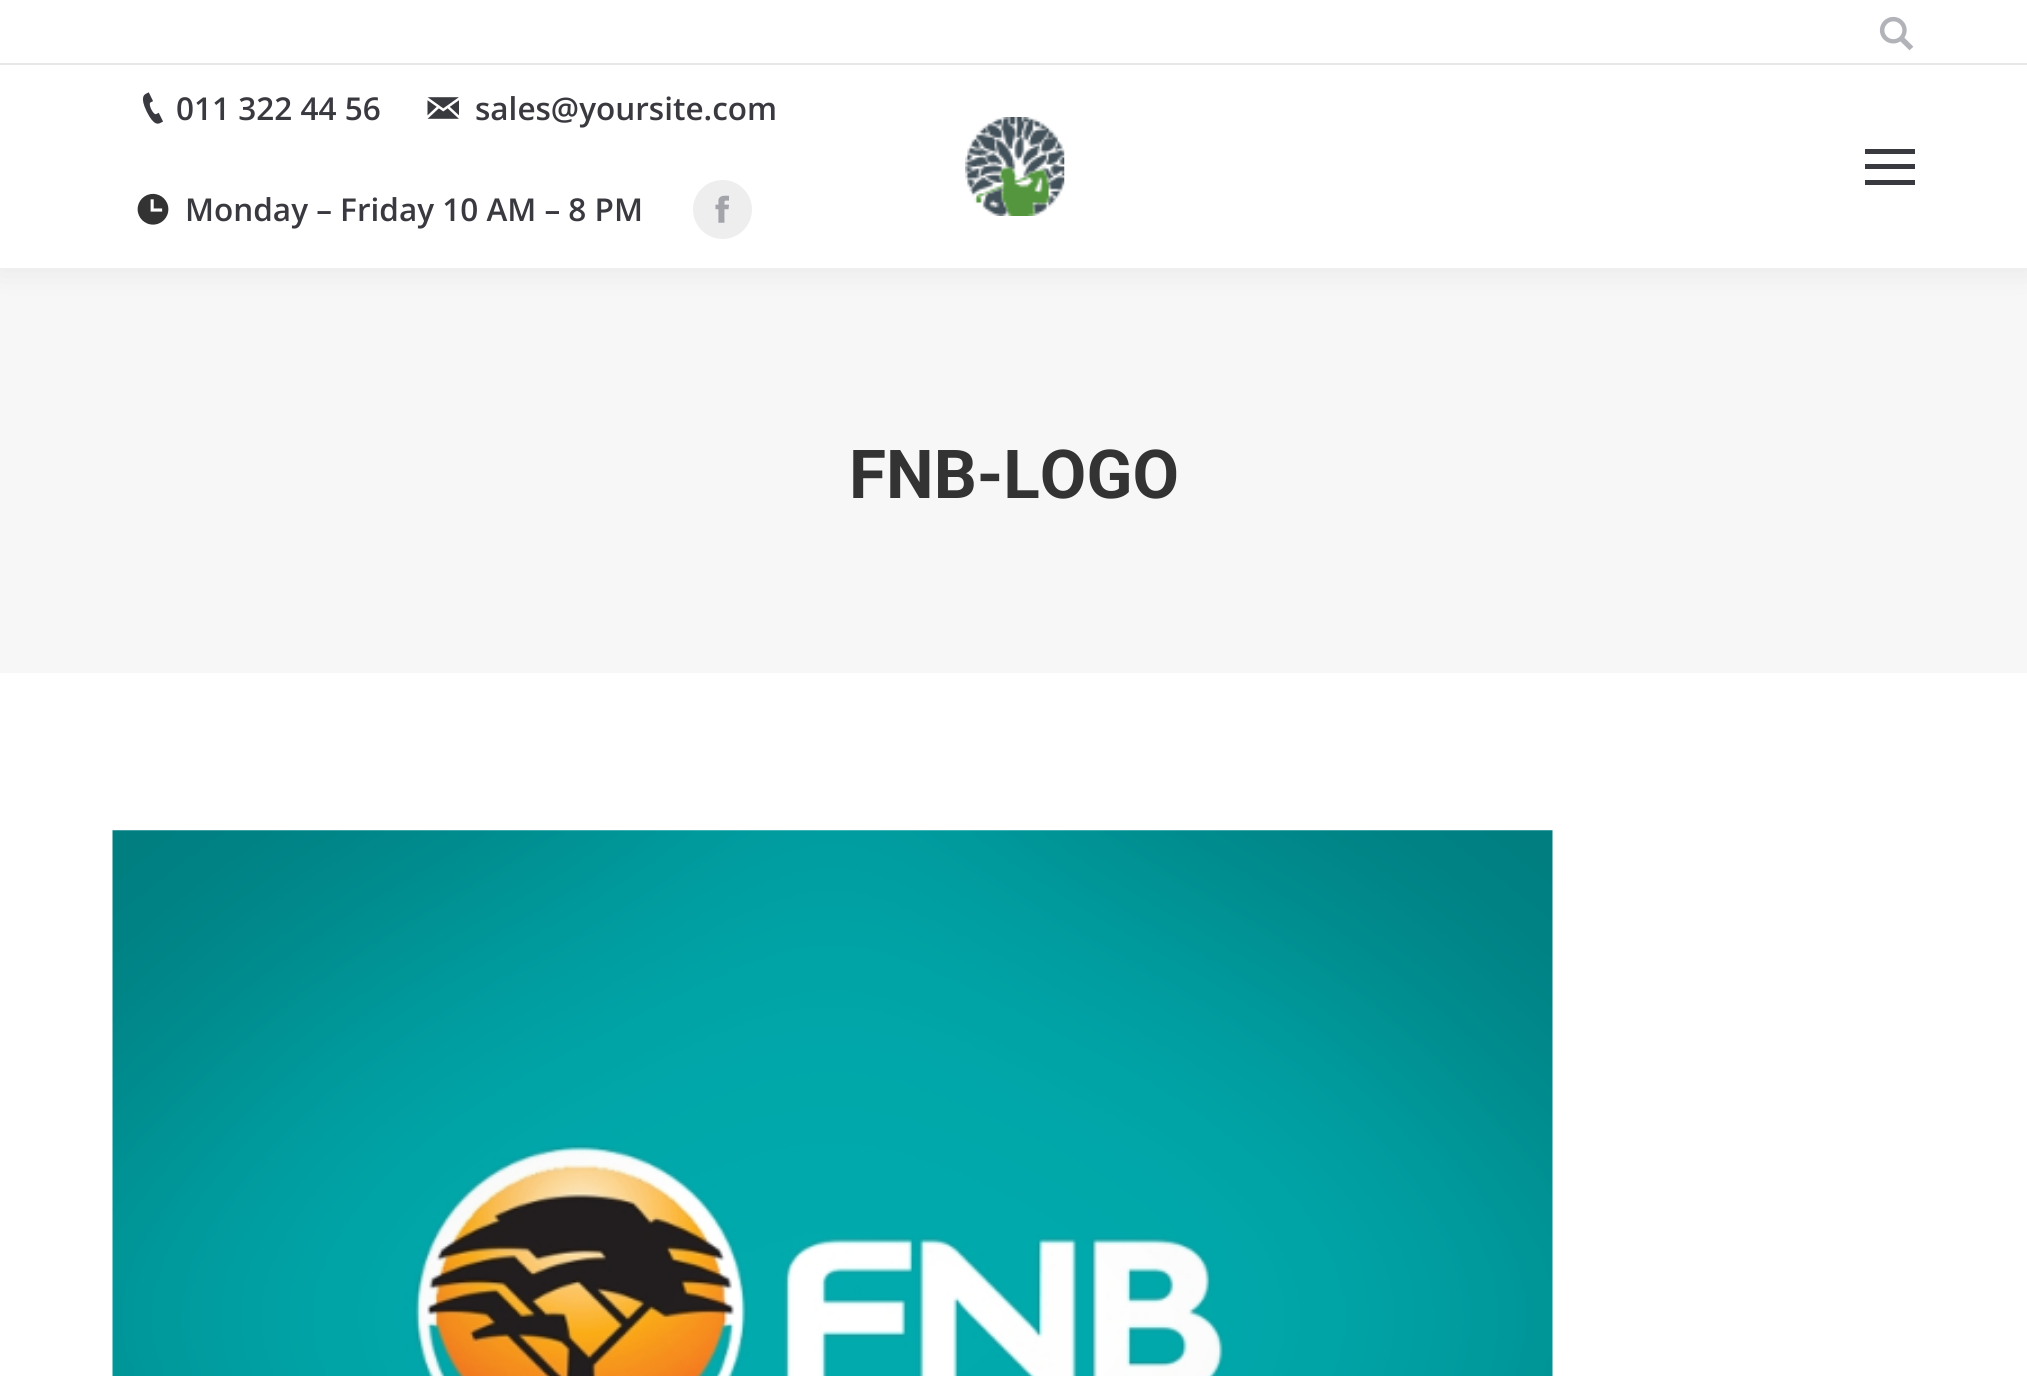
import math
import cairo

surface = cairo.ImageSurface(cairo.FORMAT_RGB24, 2027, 1376)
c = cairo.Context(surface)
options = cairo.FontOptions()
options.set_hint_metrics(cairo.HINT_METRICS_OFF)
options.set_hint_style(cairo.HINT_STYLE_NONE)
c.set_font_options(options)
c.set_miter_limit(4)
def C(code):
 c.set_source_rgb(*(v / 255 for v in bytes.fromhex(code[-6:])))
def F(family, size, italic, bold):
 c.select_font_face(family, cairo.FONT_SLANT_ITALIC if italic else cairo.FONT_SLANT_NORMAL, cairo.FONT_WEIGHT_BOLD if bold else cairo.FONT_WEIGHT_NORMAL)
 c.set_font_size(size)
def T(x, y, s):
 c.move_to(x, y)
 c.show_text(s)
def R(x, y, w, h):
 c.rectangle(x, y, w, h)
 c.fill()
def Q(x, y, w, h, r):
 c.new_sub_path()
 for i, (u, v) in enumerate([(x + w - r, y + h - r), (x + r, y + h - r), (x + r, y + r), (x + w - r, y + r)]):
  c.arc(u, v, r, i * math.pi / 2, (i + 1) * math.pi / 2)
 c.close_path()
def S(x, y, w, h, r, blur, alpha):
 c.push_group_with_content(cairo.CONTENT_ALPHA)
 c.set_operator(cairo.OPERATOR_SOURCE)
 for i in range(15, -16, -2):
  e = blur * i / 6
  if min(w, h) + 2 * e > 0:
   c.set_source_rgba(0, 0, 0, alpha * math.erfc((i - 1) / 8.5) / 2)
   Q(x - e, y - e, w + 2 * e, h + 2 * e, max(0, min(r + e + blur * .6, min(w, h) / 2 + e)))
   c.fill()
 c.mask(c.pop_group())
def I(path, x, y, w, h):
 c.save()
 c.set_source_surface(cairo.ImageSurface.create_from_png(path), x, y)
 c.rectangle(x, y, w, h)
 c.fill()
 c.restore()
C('ffffff')
c.paint()
C('f7f7f7')
R(0,268,2027,405)
C('000000')
S(-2,-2,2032,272,0,17,.07)
C('ffffff')
R(0,0,2027,268)
I('1.png',1879,16,35,35)
C('e7e7e7')
R(0,63,2027,2)
I('2.png',142,92,21,32)
F('Open Sans SemiBold',31.5,0,0)
C('393940')
T(176,120,'011 322 44 56')
I('3.png',427,97,32,22)
T(475,120,'sales@yoursite.com')
I('4.png',137,193,32,32)
T(185,221,'Monday – Friday 10 AM – 8 PM')
C('eeeeef')
c.new_path()
c.arc(722.5,209.5,29.5,0,2 * math.pi)
c.fill()
I('5.png',715,195,14,28)
I('6.png',965,117,100,99)
C('393940')
R(1865,164,50,5)
R(1865,149,50,5)
R(1865,180,50,5)
F('Roboto',67.5,0,1)
C('333333')
T(849,498,'FNB-LOGO')
I('7.png',112,830,1441,546)
surface.write_to_png('o.png')
